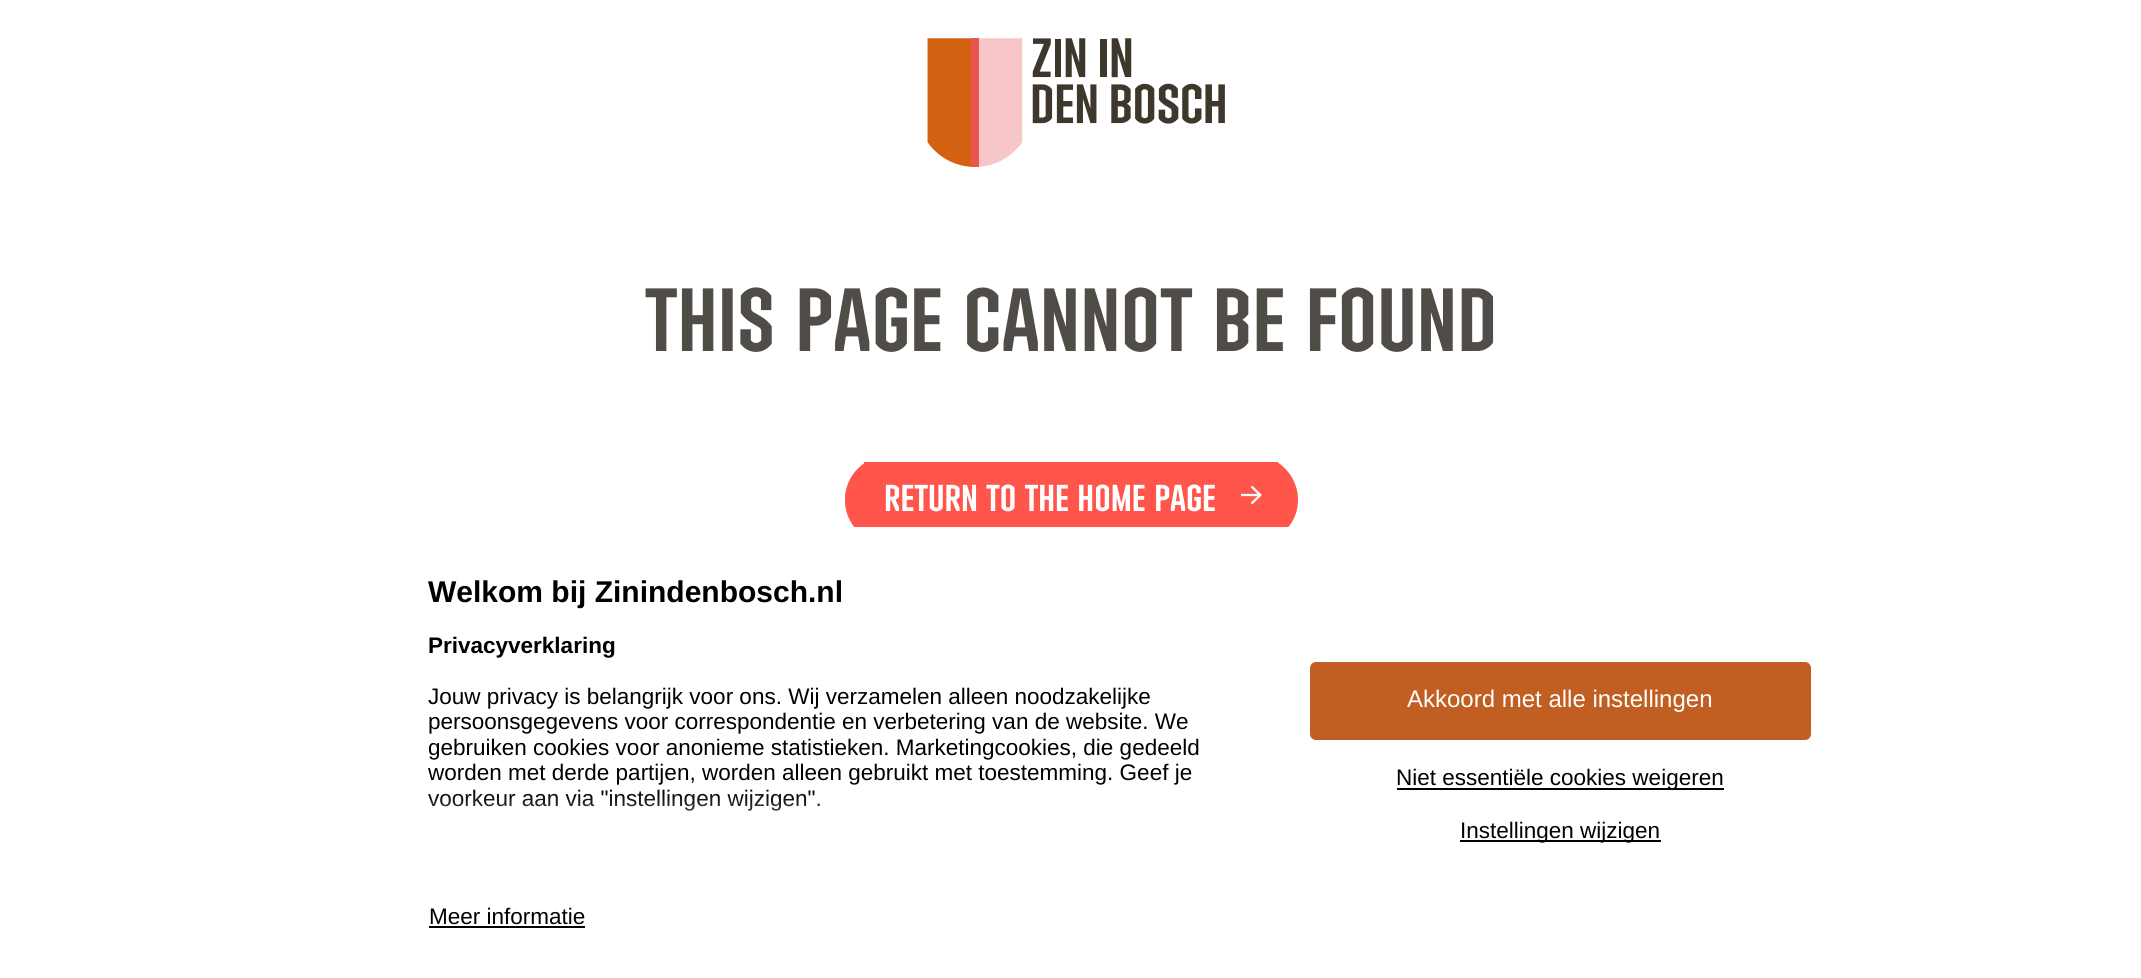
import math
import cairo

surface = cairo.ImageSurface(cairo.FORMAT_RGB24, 2141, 978)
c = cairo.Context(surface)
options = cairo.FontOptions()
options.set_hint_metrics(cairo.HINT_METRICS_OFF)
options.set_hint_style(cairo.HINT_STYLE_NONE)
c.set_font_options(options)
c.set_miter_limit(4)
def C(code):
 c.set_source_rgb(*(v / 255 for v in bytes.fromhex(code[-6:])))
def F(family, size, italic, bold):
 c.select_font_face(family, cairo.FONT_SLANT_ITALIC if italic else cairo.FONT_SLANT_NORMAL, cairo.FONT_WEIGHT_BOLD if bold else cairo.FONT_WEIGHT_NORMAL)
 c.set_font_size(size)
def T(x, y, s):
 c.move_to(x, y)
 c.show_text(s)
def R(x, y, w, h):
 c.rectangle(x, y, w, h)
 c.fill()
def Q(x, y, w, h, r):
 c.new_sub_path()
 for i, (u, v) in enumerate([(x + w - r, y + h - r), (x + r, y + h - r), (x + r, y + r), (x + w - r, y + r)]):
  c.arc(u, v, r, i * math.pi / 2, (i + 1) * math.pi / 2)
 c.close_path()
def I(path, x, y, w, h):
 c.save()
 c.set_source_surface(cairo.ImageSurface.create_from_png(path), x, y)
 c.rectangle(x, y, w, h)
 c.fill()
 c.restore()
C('ffffff')
c.paint()
I('1.png',927,38,298,129)
F('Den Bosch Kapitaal',82.5,0,0)
C('504c48')
T(645,351,'THIS PAGE CANNOT BE FOUND')
C('ff554b')
R(864,462,414,65)
I('2.png',1241,486,21,18)
c.save()
c.rectangle(845,462,21,75)
c.clip()
c.new_path()
c.move_to(865,537)
c.line_to(866,537)
c.line_to(866,462)
c.curve_to(838,480,838,519,865,537)
c.close_path()
c.fill()
c.restore()
F('Den Bosch Kapitaal',34.5,0,0)
C('ffffff')
T(884,511,'RETURN TO THE HOME PAGE')
c.save()
c.rectangle(1277,462,21,75)
c.clip()
C('ff554b')
c.new_path()
c.move_to(1277,462)
c.line_to(1276,462)
c.line_to(1277,537)
c.curve_to(1305,520,1305,480,1277,462)
c.close_path()
c.fill()
c.restore()
R(854,527,435,10)
F('Liberation Sans',30,0,1)
C('000000')
T(428,602,'Welkom bij Zinindenbosch.nl')
F('Liberation Sans',22.5,0,1)
T(428,653,'Privacyverklaring')
F('Liberation Sans',22.5,0,0)
T(428,704,'Jouw privacy is belangrijk voor ons. Wij verzamelen alleen noodzakelijke')
T(428,729,'persoonsgegevens voor correspondentie en verbetering van de website. We')
T(428,755,'gebruiken cookies voor anonieme statistieken. Marketingcookies, die gedeeld')
T(428,780,'worden met derde partijen, worden alleen gebruikt met toestemming. Geef je')
T(428,806,'voorkeur aan via "instellingen wijzigen".')
gradient = cairo.LinearGradient(845,791,845,881)
gradient.add_color_stop_rgba(0,1,1,1,0)
gradient.add_color_stop_rgba(1,1,1,1,1)
c.set_source(gradient)
R(428,793,392,18)
C('000000')
T(429,924,'Meer informatie')
R(429,926,156,2)
C('c05f21')
Q(1310,662,501,78,6)
c.fill()
F('Liberation Sans',24,0,0)
C('ffffff')
T(1407,707,'Akkoord met alle instellingen')
C('000000')
R(1397,788,327,2)
F('Liberation Sans',22.5,0,0)
T(1396,785,'Niet essentiële cookies weigeren')
R(1460,840,201,2)
T(1460,838,'Instellingen wijzigen')
surface.write_to_png('o.png')
